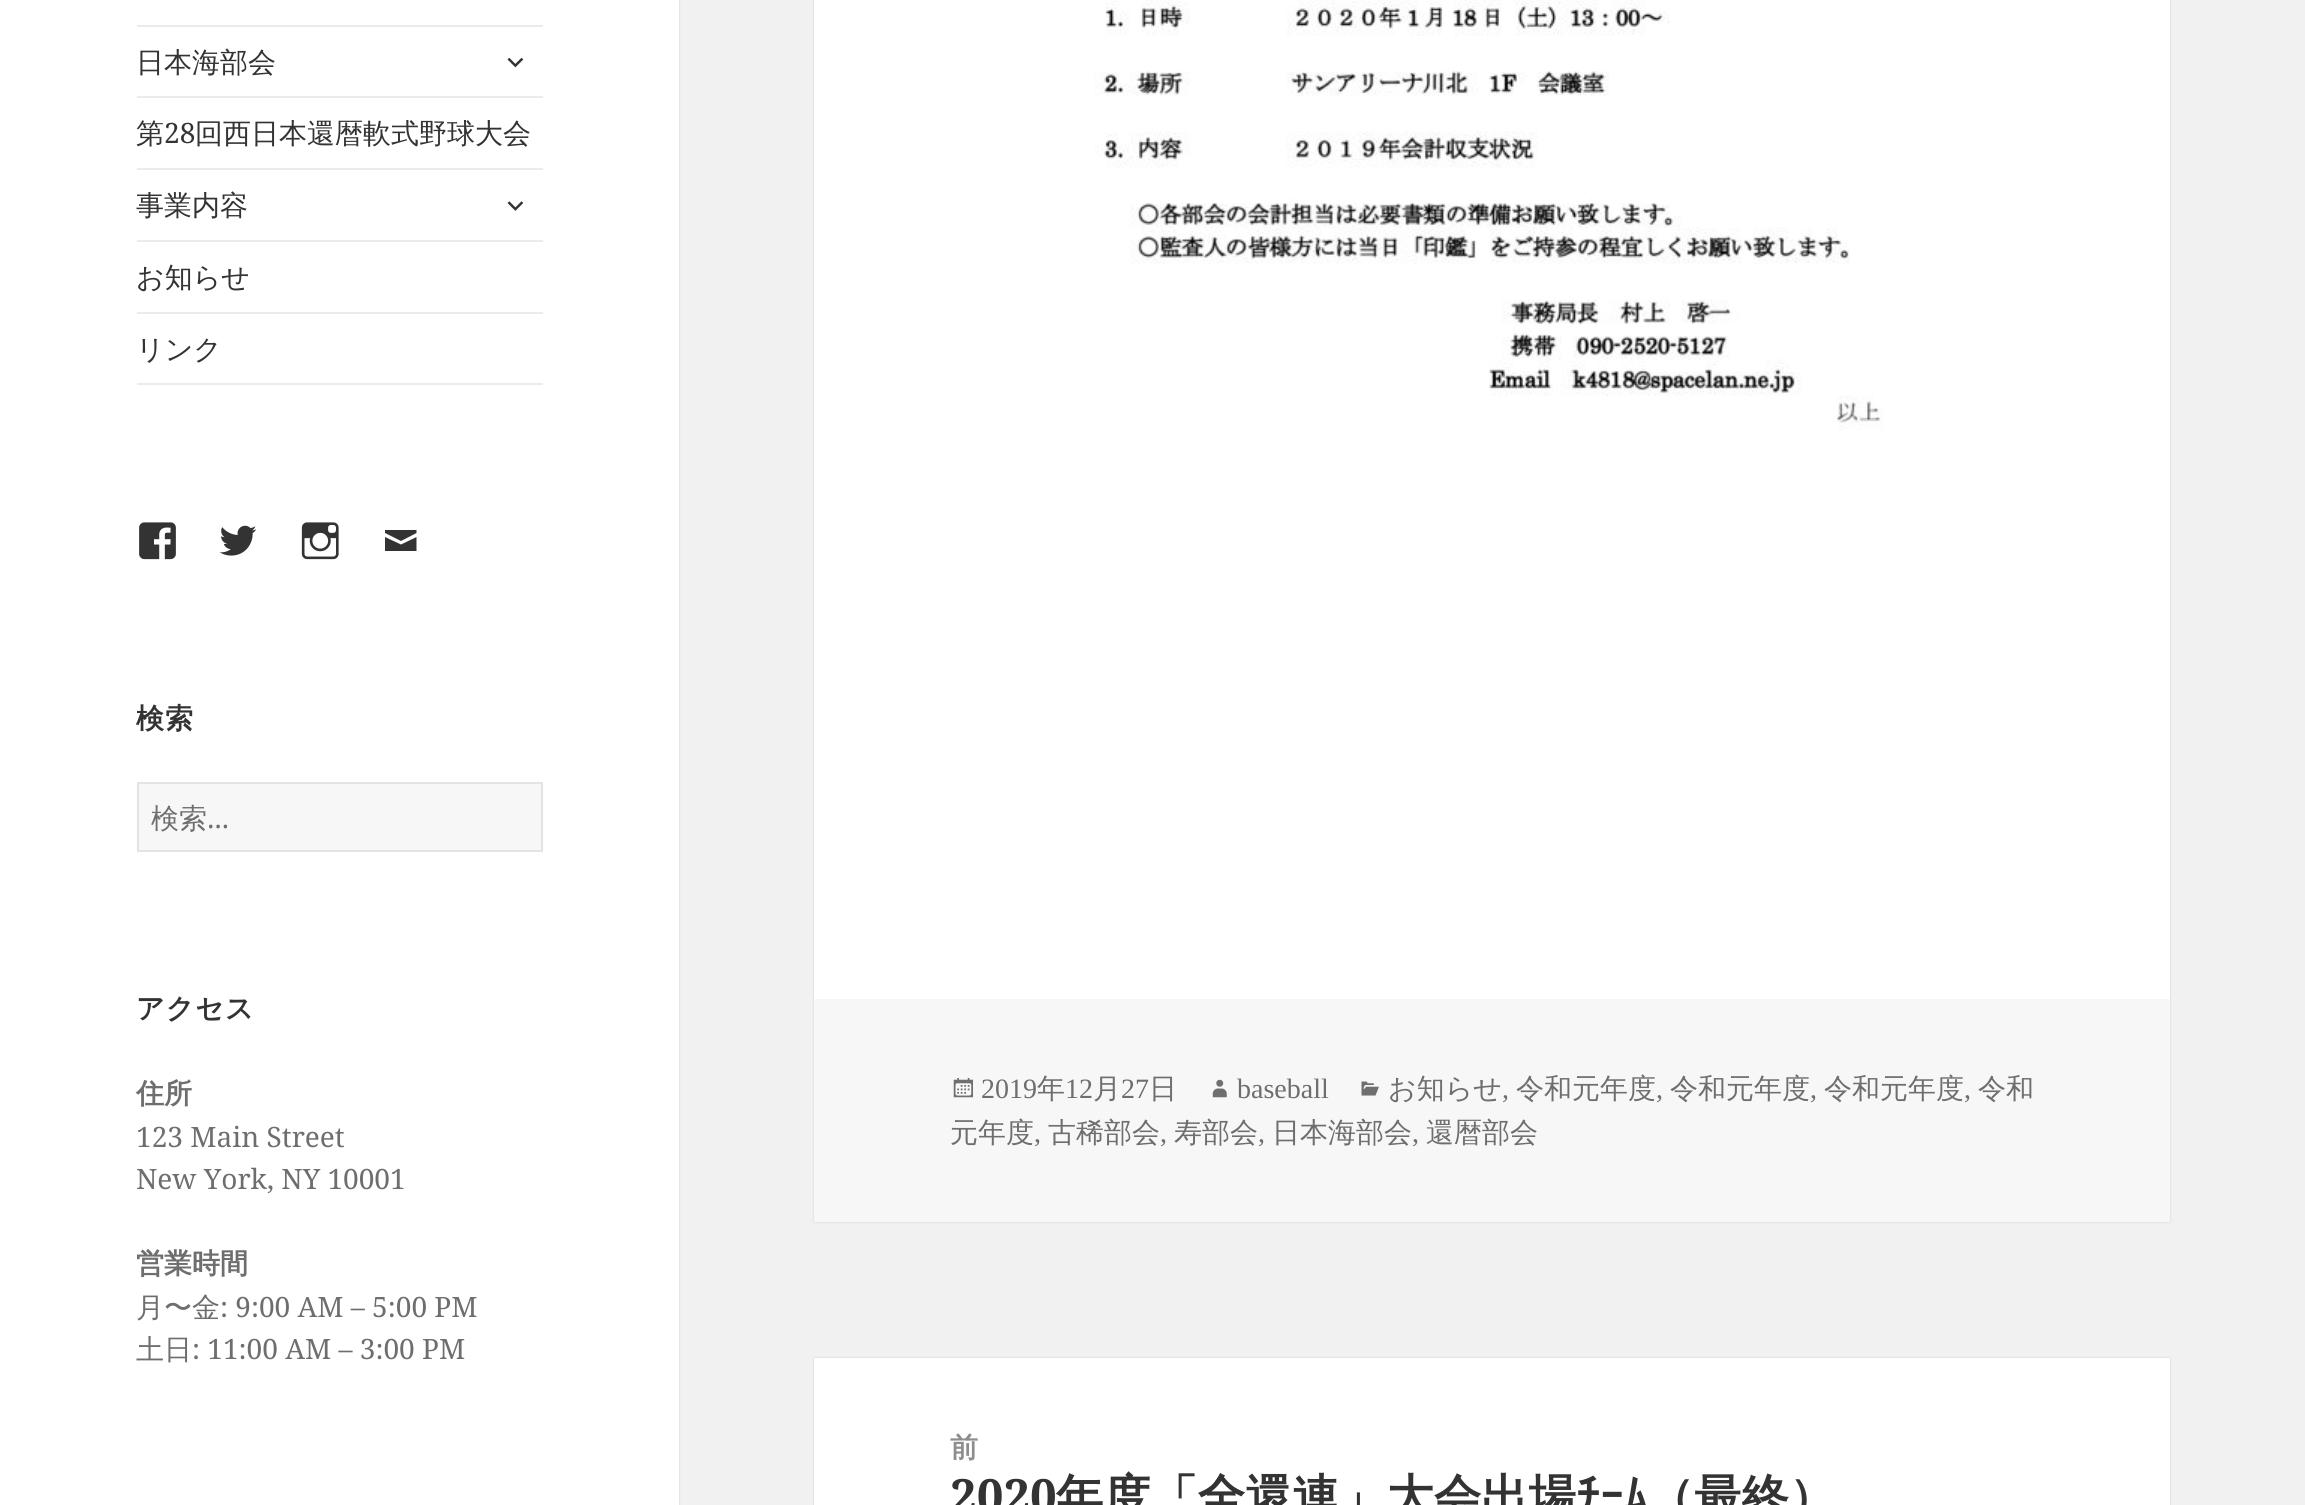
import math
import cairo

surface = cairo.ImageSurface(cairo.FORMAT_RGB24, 2305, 1505)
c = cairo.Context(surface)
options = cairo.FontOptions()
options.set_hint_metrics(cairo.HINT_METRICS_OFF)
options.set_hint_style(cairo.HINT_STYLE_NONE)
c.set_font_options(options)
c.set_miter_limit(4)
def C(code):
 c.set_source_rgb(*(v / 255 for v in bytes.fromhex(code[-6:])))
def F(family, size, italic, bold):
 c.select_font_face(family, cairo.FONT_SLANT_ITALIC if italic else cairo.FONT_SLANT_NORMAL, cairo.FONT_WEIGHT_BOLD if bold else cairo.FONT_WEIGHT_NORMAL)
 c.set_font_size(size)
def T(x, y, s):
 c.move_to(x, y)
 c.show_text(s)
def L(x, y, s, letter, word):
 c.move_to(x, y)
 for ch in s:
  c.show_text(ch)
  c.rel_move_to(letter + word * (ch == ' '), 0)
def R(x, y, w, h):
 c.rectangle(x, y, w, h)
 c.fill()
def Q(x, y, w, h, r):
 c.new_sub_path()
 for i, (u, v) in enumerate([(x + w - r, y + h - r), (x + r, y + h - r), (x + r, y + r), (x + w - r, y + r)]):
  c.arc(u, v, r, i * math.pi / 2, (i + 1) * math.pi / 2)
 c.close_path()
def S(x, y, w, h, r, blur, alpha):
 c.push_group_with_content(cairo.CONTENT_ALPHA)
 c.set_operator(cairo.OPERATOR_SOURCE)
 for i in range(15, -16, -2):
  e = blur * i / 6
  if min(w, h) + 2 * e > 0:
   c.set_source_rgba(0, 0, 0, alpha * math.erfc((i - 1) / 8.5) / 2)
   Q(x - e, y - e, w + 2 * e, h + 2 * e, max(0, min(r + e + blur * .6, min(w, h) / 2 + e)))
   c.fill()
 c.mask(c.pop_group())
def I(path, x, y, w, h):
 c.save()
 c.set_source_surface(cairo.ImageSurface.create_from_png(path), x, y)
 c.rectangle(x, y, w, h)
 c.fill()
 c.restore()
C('f1f1f1')
c.paint()
C('000000')
S(0,0,679,1505,0,1,.15)
C('ffffff')
R(0,0,679,1505)
C('ebebeb')
R(137,383,406,2)
R(137,25,406,2)
F('WenQuanYi Zen Hei Medium',28,0,0)
C('333333')
T(136,72,'日本海部会')
I('1.png',507,57,17,11)
C('ebebeb')
R(137,96,406,2)
C('333333')
T(136,143,'第')
F('Noto Serif',28,0,0)
T(164,143,'28')
F('WenQuanYi Zen Hei Medium',28,0,0)
T(195,143,'回西日本還暦軟式野球大会')
C('ebebeb')
R(137,168,406,2)
C('333333')
T(136,215,'事業内容')
I('2.png',507,201,17,10)
C('ebebeb')
R(137,240,406,2)
C('333333')
T(136,287,'お知らせ')
C('ebebeb')
R(137,312,406,2)
C('333333')
T(136,359,'リンク')
I('3.png',139,522,37,38)
I('4.png',219,525,38,31)
I('5.png',301,522,38,38)
c.new_path()
c.move_to(385,530)
c.line_to(416.5,530)
c.line_to(416.5,533)
c.line_to(401,541)
c.line_to(385,533)
c.close_path()
c.move_to(385,537)
c.line_to(401,544.5)
c.line_to(416.5,537)
c.line_to(416.5,551)
c.line_to(385,551)
c.close_path()
c.fill()
F('WenQuanYi Zen Hei',28,0,1)
L(136,728,'検索',1,0)
C('f7f7f7')
c.rectangle(138,783,404,68)
c.fill_preserve()
C('e3e3e3')
c.stroke()
F('WenQuanYi Zen Hei Medium',28,0,0)
C('6e6e6e')
T(151,828,'検索')
F('Noto Sans',28,0,0)
T(207,828,'…')
F('WenQuanYi Zen Hei',28,0,1)
C('333333')
L(136,1018,'アクセス',1,0)
C('6e6e6e')
T(136,1103,'住所')
F('Noto Serif',28,0,0)
T(136,1147,'123 Main Street')
T(136,1189,'New York, NY 10001')
F('WenQuanYi Zen Hei',28,0,1)
T(136,1273,'営業時間')
F('WenQuanYi Zen Hei Medium',28,0,0)
T(136,1317,'月〜金')
F('Noto Serif',28,0,0)
T(220,1317,': 9:00 AM – 5:00 PM')
F('WenQuanYi Zen Hei Medium',28,0,0)
T(136,1359,'土日')
F('Noto Serif',28,0,0)
T(192,1359,': 11:00 AM – 3:00 PM')
C('000000')
S(814,-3,1356,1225,0,1,.15)
C('ffffff')
R(814,0,1356,999)
I('6.png',1094,0,790,430)
C('f7f7f7')
R(814,999,1356,223)
I('7.png',1361,1081,18,15)
F('WenQuanYi Zen Hei Medium',28,0,0)
C('6e6e6e')
T(1388,1098,'お知らせ')
T(1516,1098,'令和元年度')
T(1670,1098,'令和元年度')
T(1824,1098,'令和元年度')
T(1978,1098,'令和')
F('Liberation Serif',28,0,0)
T(1502,1098,',')
T(1656,1098,',')
T(1810,1098,',')
T(1964,1098,',')
F('WenQuanYi Zen Hei Medium',28,0,0)
T(950,1142,'元年度')
F('Liberation Serif',28,0,0)
T(1034,1142,',')
F('WenQuanYi Zen Hei Medium',28,0,0)
T(1048,1142,'古稀部会')
F('Liberation Serif',28,0,0)
T(1160,1142,',')
F('WenQuanYi Zen Hei Medium',28,0,0)
T(1174,1142,'寿部会')
F('Liberation Serif',28,0,0)
T(1258,1142,',')
F('WenQuanYi Zen Hei Medium',28,0,0)
T(1272,1142,'日本海部会')
F('Liberation Serif',28,0,0)
T(1412,1142,',')
F('WenQuanYi Zen Hei Medium',28,0,0)
T(1426,1142,'還暦部会')
I('8.png',953,1078,20,20)
F('Liberation Serif',28,0,0)
T(981,1098,'2019')
F('WenQuanYi Zen Hei Medium',28,0,0)
T(1037,1098,'年')
F('Liberation Serif',28,0,0)
T(1065,1098,'12')
F('WenQuanYi Zen Hei Medium',28,0,0)
T(1093,1098,'月')
F('Liberation Serif',28,0,0)
T(1121,1098,'27')
F('WenQuanYi Zen Hei Medium',28,0,0)
T(1149,1098,'日')
I('9.png',1212,1079,15,19)
F('Liberation Serif',28,0,0)
T(1237,1098,'baseball')
C('000000')
S(814,1358,1356,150,0,1,.15)
C('ffffff')
R(814,1358,1356,147)
F('WenQuanYi Zen Hei',28,0,1)
C('8d8d8d')
L(950,1457,'前',1,0)
F('Noto Serif',47.25,0,1)
C('333333')
T(950,1513,'2020')
F('WenQuanYi Zen Hei',47.25,0,1)
T(1056,1513,'年度「全還連」大会出場')
F('IPAPGothic',47.25,0,1)
T(1576,1513,'ﾁｰﾑ')
F('WenQuanYi Zen Hei',47.25,0,1)
T(1647,1513,'（最終）')
surface.write_to_png('o.png')
